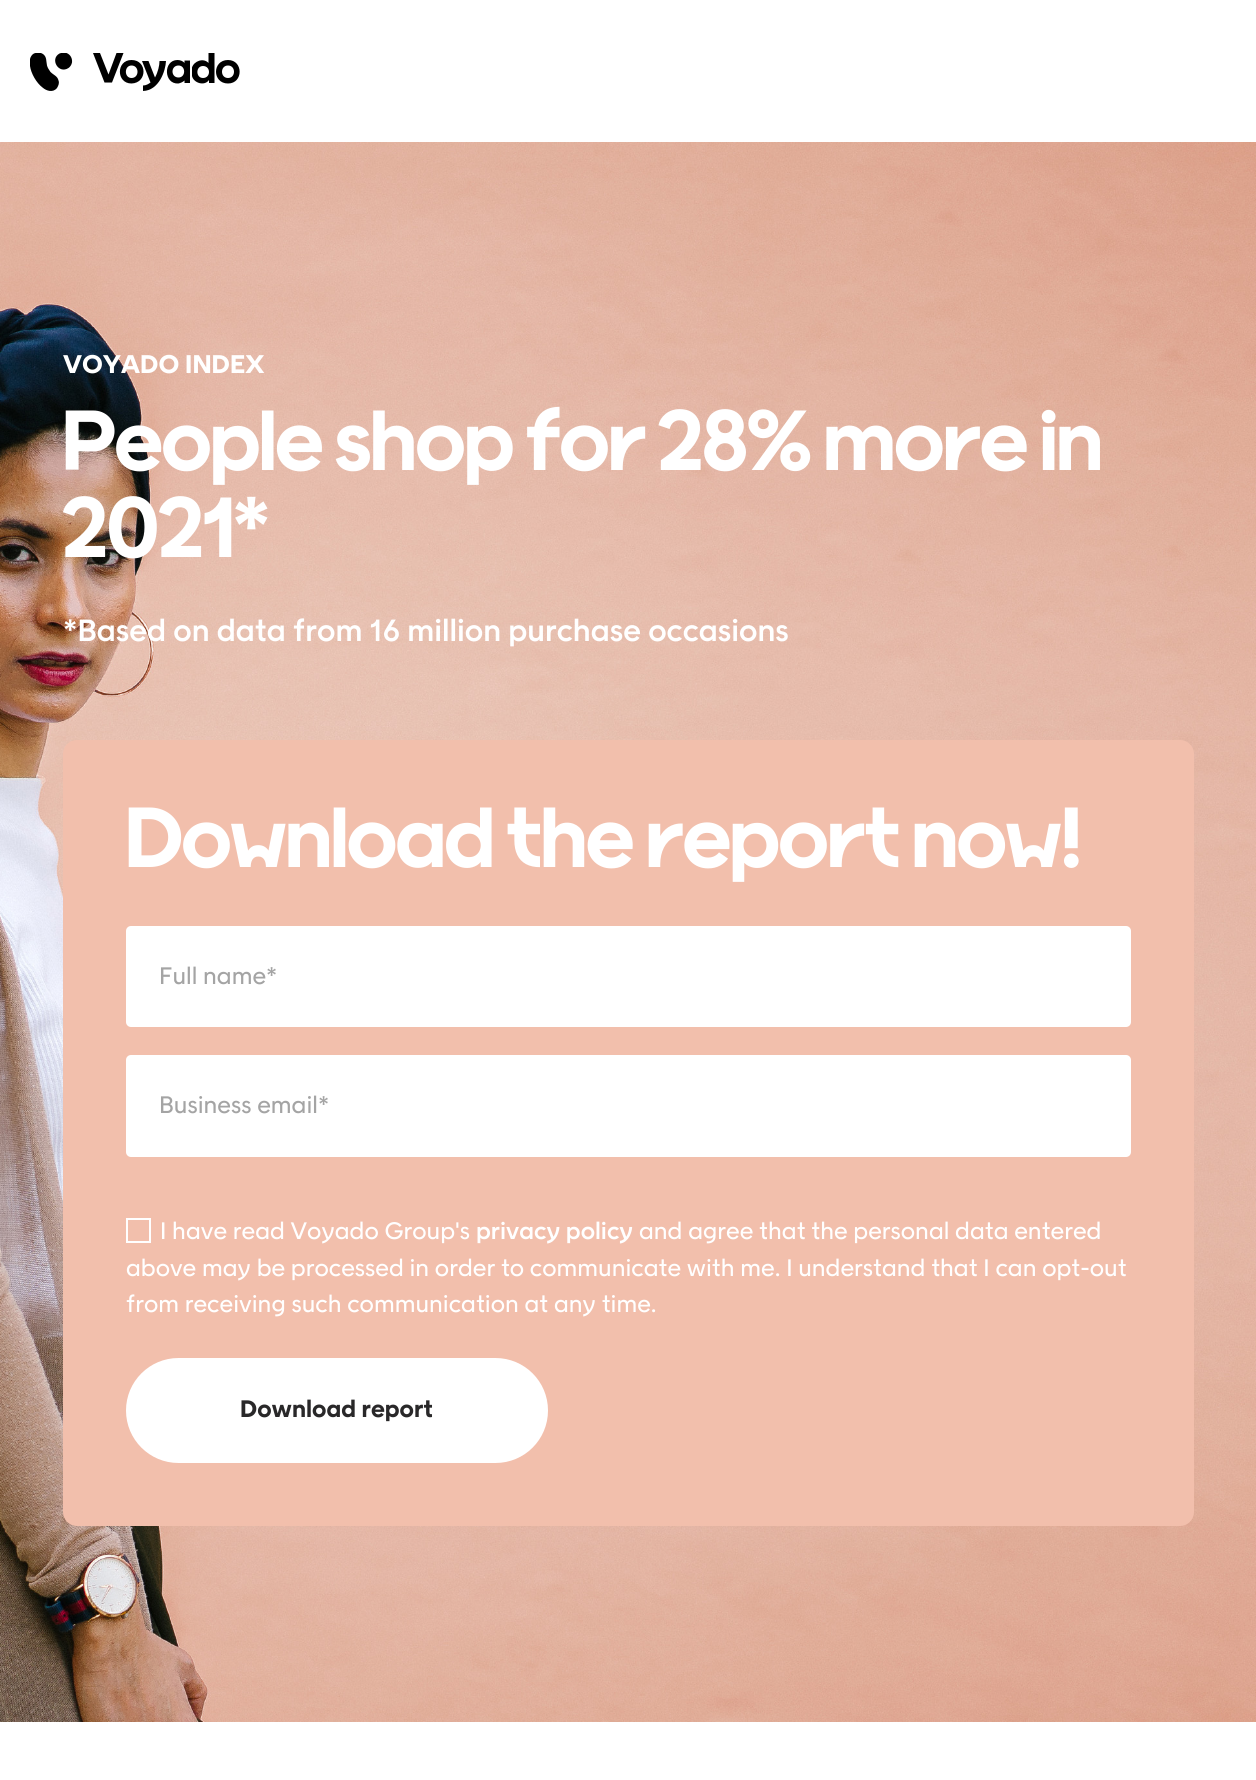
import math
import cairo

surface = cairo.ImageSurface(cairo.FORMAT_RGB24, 1256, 1780)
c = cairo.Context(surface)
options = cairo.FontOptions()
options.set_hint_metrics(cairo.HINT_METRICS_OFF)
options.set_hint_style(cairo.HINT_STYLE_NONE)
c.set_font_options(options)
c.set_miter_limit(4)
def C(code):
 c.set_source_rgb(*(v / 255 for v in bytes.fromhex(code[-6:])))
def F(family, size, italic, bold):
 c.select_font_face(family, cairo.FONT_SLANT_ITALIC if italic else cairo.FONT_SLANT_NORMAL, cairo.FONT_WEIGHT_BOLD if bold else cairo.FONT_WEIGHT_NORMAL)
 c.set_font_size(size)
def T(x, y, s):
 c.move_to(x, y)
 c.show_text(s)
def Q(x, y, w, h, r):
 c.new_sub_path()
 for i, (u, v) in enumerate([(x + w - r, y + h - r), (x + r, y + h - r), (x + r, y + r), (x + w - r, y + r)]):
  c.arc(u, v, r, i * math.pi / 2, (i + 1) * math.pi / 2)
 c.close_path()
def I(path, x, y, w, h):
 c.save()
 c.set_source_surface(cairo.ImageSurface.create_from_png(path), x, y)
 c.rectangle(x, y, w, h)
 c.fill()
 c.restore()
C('ffffff')
c.paint()
C('000000')
c.new_path()
c.move_to(30,59)
c.curve_to(30.5,56.5,32.5,53.5,35.5,53)
c.line_to(41,53)
c.line_to(43,54)
c.curve_to(47,57,46,61,47,65.5)
c.curve_to(47.5,67.5,49,70,50.5,72)
c.curve_to(53.5,75,57.5,76,58.5,80.5)
c.curve_to(59.5,83,58.5,85.5,57,88)
c.curve_to(53,93,46.5,91,42.5,87.5)
c.curve_to(36.5,83,31,73.5,30,66)
c.close_path()
c.fill()
c.save()
c.rectangle(21,53,228,38)
c.clip()
c.new_path()
c.move_to(66.5,53)
c.curve_to(70.5,54.5,72.5,58.5,72,62.5)
c.curve_to(71.5,65,70,67,68.5,68)
c.curve_to(58.5,74.5,49.5,59,59.5,53.5)
c.curve_to(61.5,52.5,64,53,66.5,53)
c.close_path()
c.fill()
c.restore()
c.new_path()
c.move_to(93,53)
c.line_to(100,53)
c.line_to(108.5,74.5)
c.line_to(116.5,53)
c.line_to(123.5,53)
c.line_to(112,82.5)
c.line_to(104.5,82.5)
c.close_path()
c.fill()
c.set_fill_rule(cairo.FILL_RULE_EVEN_ODD)
c.new_path()
c.move_to(131.5,60)
c.curve_to(147.5,60,147.5,83,131.5,83.5)
c.curve_to(116,83.5,116,60,131.5,60)
c.close_path()
c.move_to(131.5,65.5)
c.curve_to(139.5,65.5,139.5,78,131.5,78)
c.curve_to(124,78,124,65.5,131.5,65.5)
c.close_path()
c.fill()
c.set_fill_rule(cairo.FILL_RULE_WINDING)
c.new_path()
c.move_to(166,61)
c.curve_to(165.5,71,159,90.5,143,91)
c.line_to(143,85.5)
c.curve_to(146,85.5,148.5,84,150.5,82.5)
c.line_to(142,61)
c.line_to(148.5,61)
c.line_to(155,77.5)
c.curve_to(158,72,159.5,65.5,159.5,61)
c.close_path()
c.fill()
c.set_fill_rule(cairo.FILL_RULE_EVEN_ODD)
c.new_path()
c.move_to(177.5,60)
c.curve_to(180,60,183,61,184.5,63)
c.line_to(184.5,60.5)
c.line_to(190,60.5)
c.line_to(190,83)
c.line_to(184.5,83)
c.line_to(184.5,80.5)
c.curve_to(183,82,180.5,83,178.5,83.5)
c.curve_to(163.5,84.5,163,60,177.5,60)
c.close_path()
c.move_to(178.5,65.5)
c.curve_to(186,65.5,186,77.5,178.5,77.5)
c.curve_to(170.5,77.5,170.5,65.5,178.5,65.5)
c.close_path()
c.move_to(192,67.5)
c.curve_to(194,61,203.5,57.5,208.5,63)
c.line_to(208.5,53)
c.line_to(214.5,53)
c.line_to(214.5,83)
c.line_to(209,83)
c.line_to(209,80)
c.curve_to(204.5,86.5,193.5,83,192,76)
c.close_path()
c.move_to(203,66)
c.curve_to(211,66,211,78,203,78)
c.curve_to(195.5,78,195.5,66,203,66)
c.close_path()
c.fill()
c.new_path()
c.move_to(228,60)
c.curve_to(243.5,60,243.5,83.5,228,83.5)
c.curve_to(212,83.5,212,60,228,60)
c.close_path()
c.move_to(228,65.5)
c.curve_to(236,65.5,236,78,228,78)
c.curve_to(220,78,220,65.5,228,65.5)
c.close_path()
c.fill()
I('1.png',0,142,1256,1580)
F('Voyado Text',26.25,0,1)
C('ffffff')
T(63,373,'VOYADO INDEX')
F('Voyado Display',87.5,0,1)
T(63,470,'People shop for 28% more in')
T(63,557,'2021*')
F('Voyado Text Medium',31.5,0,0)
T(63,641,'*Based on data from 16 million purchase occasions')
C('f2bfac')
Q(63,740,1131,786,14)
c.fill()
F('Voyado Display',87.5,0,1)
C('ffffff')
T(126,867,'Download the report now!')
Q(126,926,1005,101,5)
c.fill()
F('Voyado Text',24.5,0,0)
C('a4a4a4')
T(159,984,'Full name*')
C('ffffff')
Q(126,1055,1005,102,5)
c.fill()
C('a4a4a4')
T(159,1113,'Business email*')
c.rectangle(127,1219,23,23)
C('ffffff')
c.stroke()
T(160,1239,'I have read Voyado Group\'s')
F('Voyado Text Medium',24.5,0,0)
T(476,1239,'privacy policy')
F('Voyado Text',24.5,0,0)
T(639,1239,'and agree that the personal data entered')
T(126,1276,'above may be processed in order to communicate with me. I understand that I can opt-out')
T(126,1312,'from receiving such communication at any time.')
Q(126,1358,422,105,52.5)
c.fill()
F('Voyado Text',24.5,0,1)
C('292829')
T(240,1417,'Download report')
surface.write_to_png('o.png')
